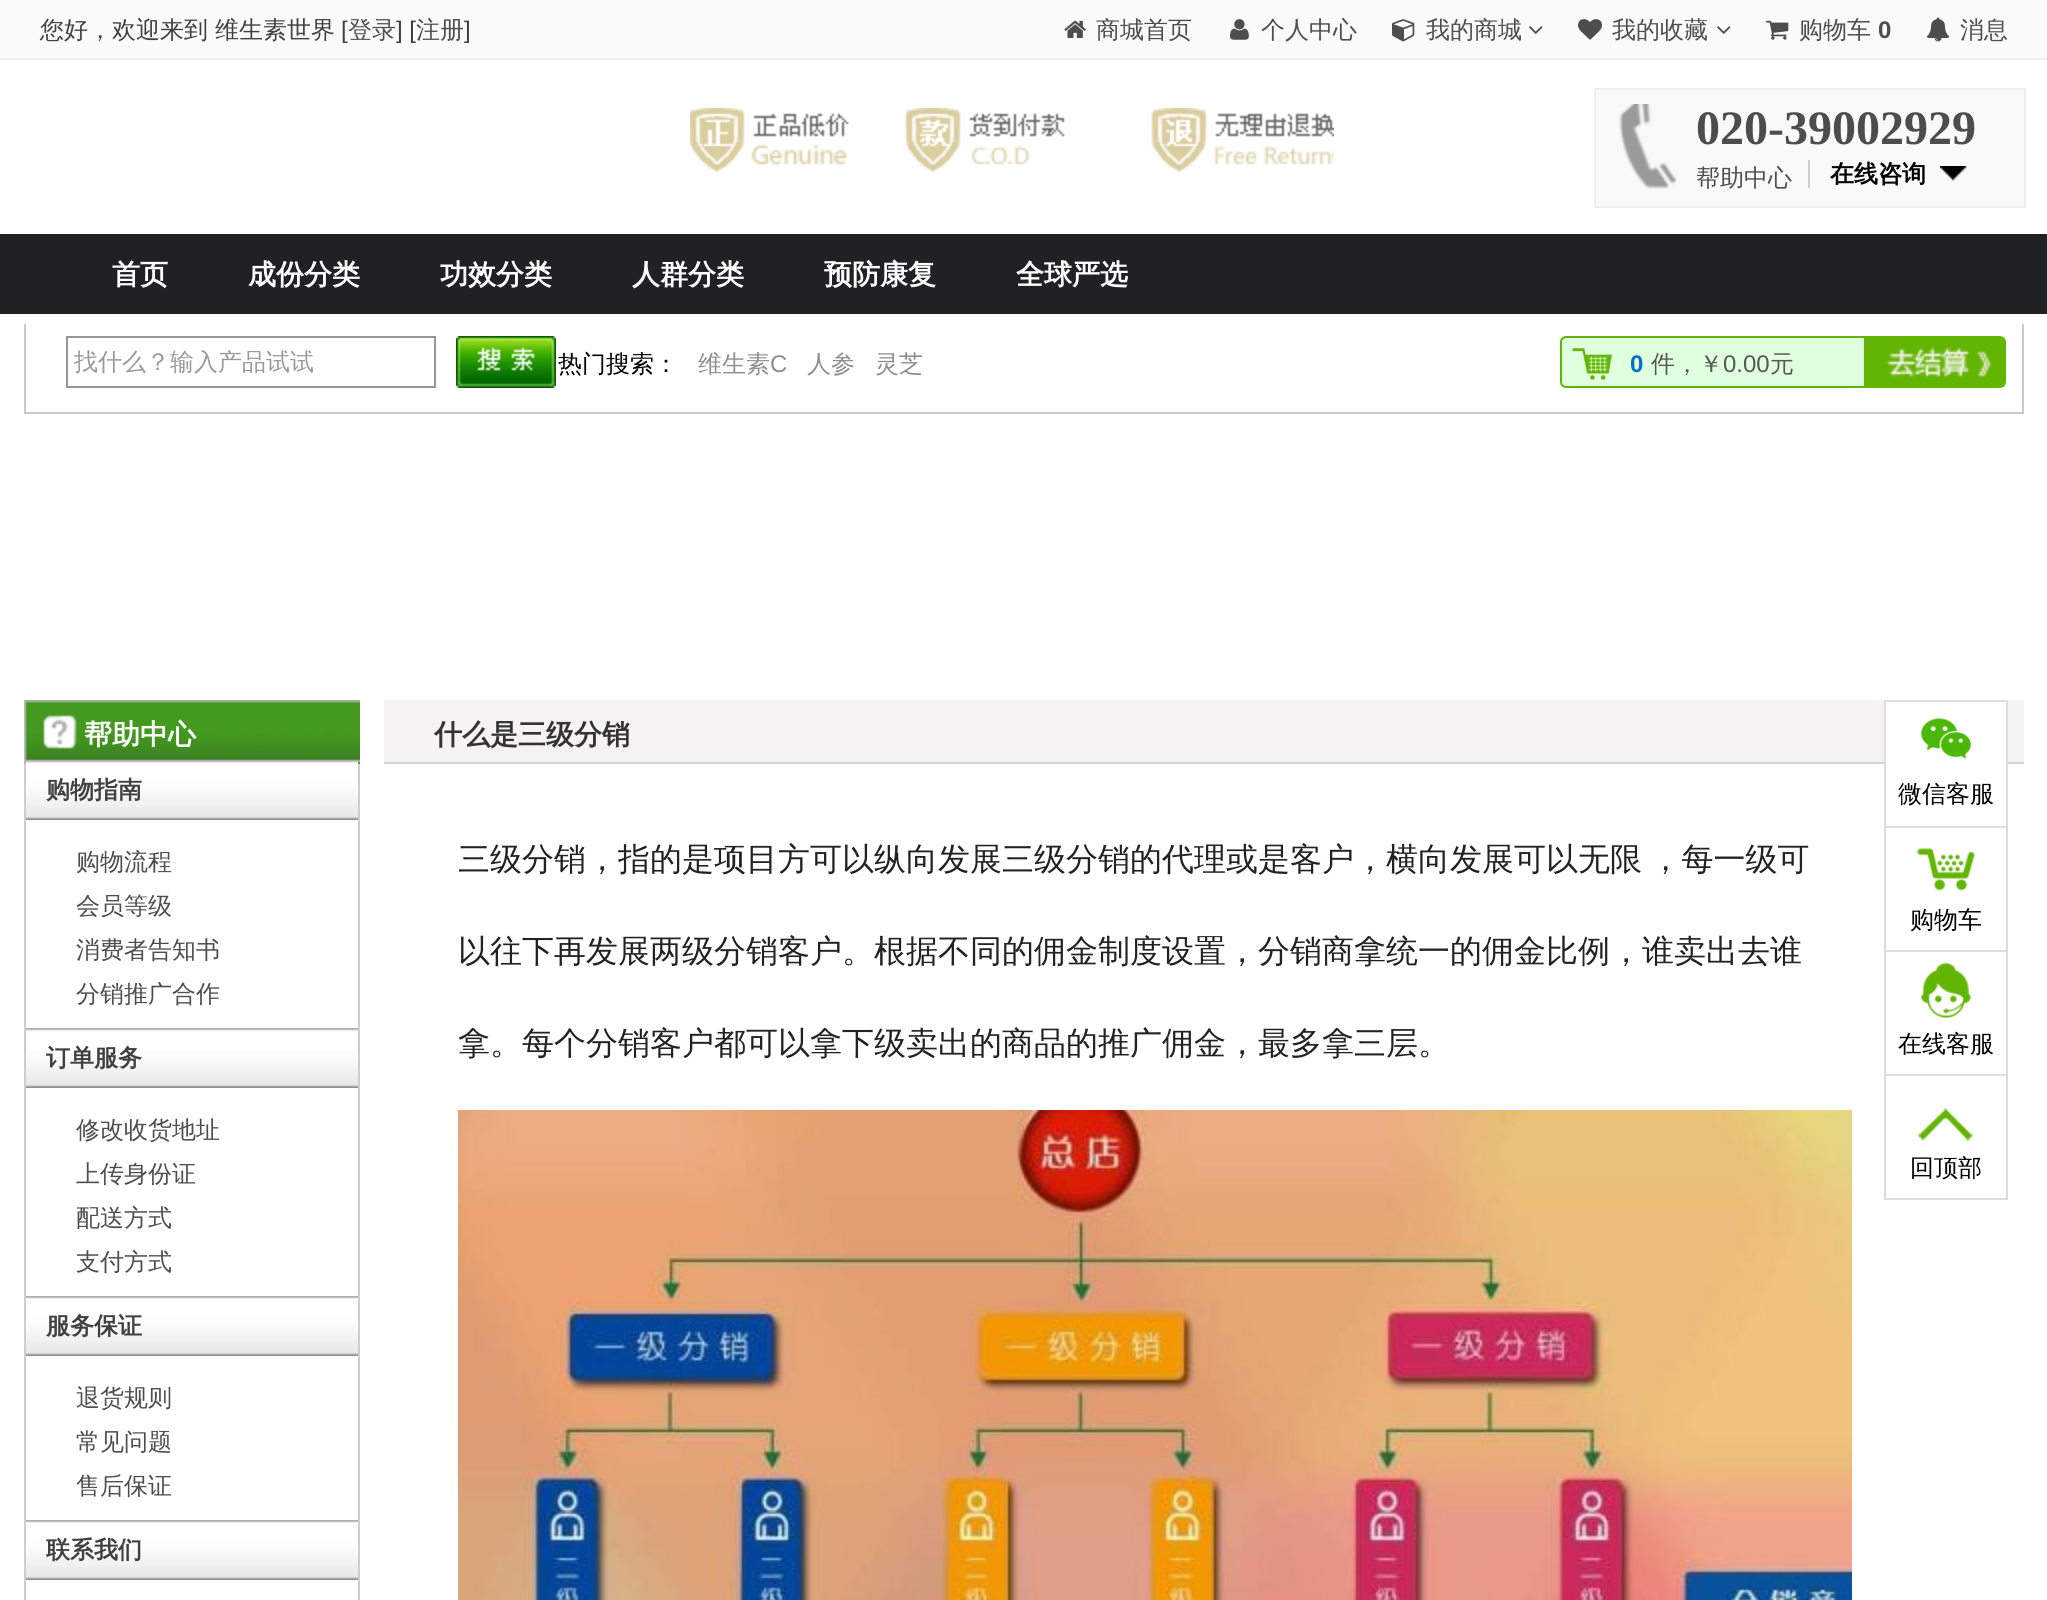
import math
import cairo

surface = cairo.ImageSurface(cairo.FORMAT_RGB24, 2047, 1600)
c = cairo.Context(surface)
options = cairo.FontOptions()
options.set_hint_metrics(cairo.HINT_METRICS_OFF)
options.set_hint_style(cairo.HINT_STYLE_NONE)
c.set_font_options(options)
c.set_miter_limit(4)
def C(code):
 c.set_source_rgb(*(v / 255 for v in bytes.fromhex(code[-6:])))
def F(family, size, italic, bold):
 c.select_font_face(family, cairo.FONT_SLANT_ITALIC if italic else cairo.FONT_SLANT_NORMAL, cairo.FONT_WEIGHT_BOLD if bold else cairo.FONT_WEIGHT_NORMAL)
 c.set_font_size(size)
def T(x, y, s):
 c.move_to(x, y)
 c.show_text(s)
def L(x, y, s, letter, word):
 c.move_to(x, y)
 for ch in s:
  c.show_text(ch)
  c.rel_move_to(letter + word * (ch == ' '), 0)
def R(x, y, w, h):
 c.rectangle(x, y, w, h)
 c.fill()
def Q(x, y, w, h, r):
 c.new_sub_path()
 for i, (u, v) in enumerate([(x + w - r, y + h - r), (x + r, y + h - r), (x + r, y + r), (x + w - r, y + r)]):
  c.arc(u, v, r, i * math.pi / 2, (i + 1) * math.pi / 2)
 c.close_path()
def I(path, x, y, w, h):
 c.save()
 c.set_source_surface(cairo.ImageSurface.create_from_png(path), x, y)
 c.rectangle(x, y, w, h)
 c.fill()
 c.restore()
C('ffffff')
c.paint()
C('fafafa')
R(0,0,2047,58)
C('f0f0f0')
R(0,58,2047,2)
F('WenQuanYi Zen Hei Medium',24,0,0)
C('404040')
T(40,38,'您好，欢迎来到')
T(215,38,'维生素世界')
F('Liberation Sans',24,0,0)
T(341,38,'[')
F('WenQuanYi Zen Hei Medium',24,0,0)
C('4d4d4d')
T(348,38,'登录')
F('Liberation Sans',24,0,0)
C('404040')
T(396,38,'] [')
F('WenQuanYi Zen Hei Medium',24,0,0)
C('4d4d4d')
T(416,38,'注册')
F('Liberation Sans',24,0,0)
C('404040')
T(464,38,']')
I('1.png',1064,20,22,18)
F('WenQuanYi Zen Hei Medium',24,0,0)
C('4d4d4d')
T(1096,38,'商城首页')
I('2.png',1230,19,19,21)
T(1261,38,'个人中心')
I('3.png',1392,19,23,23)
T(1426,38,'我的商城')
I('4.png',1529,26,14,8)
I('5.png',1578,19,24,21)
T(1612,38,'我的收藏')
I('4.png',1717,26,14,8)
I('6.png',1766,20,23,20)
T(1799,38,'购物车')
F('Liberation Sans',24,0,1)
T(1878,38,'0')
I('7.png',1926,17,24,25)
F('WenQuanYi Zen Hei Medium',24,0,0)
T(1960,38,'消息')
I('8.png',690,108,644,64)
C('f9f9f9')
R(1596,90,428,116)
I('9.png',1619,104,57,85)
c.rectangle(1595,89,430,118)
C('efefef')
c.stroke()
F('Liberation Serif',48,0,1)
C('4d4d4d')
T(1696,144,'020-39002929')
F('WenQuanYi Zen Hei Medium',24,0,0)
T(1696,186,'帮助中心')
I('10.png',1940,166,27,15)
C('cccccc')
R(1808,160,2,28)
F('WenQuanYi Zen Hei',24,0,1)
C('000000')
T(1830,182,'在线咨询')
C('1f2122')
R(0,234,2047,80)
F('WenQuanYi Zen Hei',28,0,1)
C('ffffff')
T(112,284,'首页')
T(248,284,'成份分类')
T(440,284,'功效分类')
T(632,284,'人群分类')
T(824,284,'预防康复')
T(1016,284,'全球严选')
C('cacaca')
R(2022,324,2,90)
R(24,412,2000,2)
R(24,324,2,90)
c.rectangle(67,337,368,50)
C('969696')
c.stroke()
F('WenQuanYi Zen Hei Medium',24,0,0)
C('999999')
T(74,370,'找什么？输入产品试试')
I('11.png',456,336,100,52)
C('000000')
T(558,372,'热门搜索：')
C('8d8d8d')
T(698,372,'维生素')
F('Liberation Sans',24,0,0)
T(770,372,'C')
F('WenQuanYi Zen Hei Medium',24,0,0)
T(807,372,'人参')
T(875,372,'灵芝')
C('e0ffdf')
Q(1561,337,440,50,5)
c.fill_preserve()
C('63b504')
c.stroke()
I('12.png',1572,348,40,32)
F('Liberation Sans',24,0,1)
C('066fc9')
T(1630,372,'0')
F('WenQuanYi Zen Hei Medium',24,0,0)
C('575757')
T(1651,372,'件，￥')
F('Liberation Sans',24,0,0)
T(1723,372,'0.00')
F('WenQuanYi Zen Hei Medium',24,0,0)
T(1770,372,'元')
I('13.png',1864,336,142,52)
c.rectangle(25,759,334,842)
C('cdcdcd')
c.stroke()
I('14.png',24,700,336,64)
F('WenQuanYi Zen Hei',28,0,1)
C('ffffff')
T(84,744,'帮助中心')
I('15.png',26,760,332,60)
F('WenQuanYi Zen Hei',24,0,1)
C('404040')
T(46,798,'购物指南')
F('WenQuanYi Zen Hei Medium',24,0,0)
C('4d4d4d')
T(76,870,'购物流程')
T(76,914,'会员等级')
T(76,958,'消费者告知书')
T(76,1002,'分销推广合作')
I('15.png',26,1028,332,60)
F('WenQuanYi Zen Hei',24,0,1)
C('404040')
T(46,1066,'订单服务')
F('WenQuanYi Zen Hei Medium',24,0,0)
C('4d4d4d')
T(76,1138,'修改收货地址')
T(76,1182,'上传身份证')
T(76,1226,'配送方式')
T(76,1270,'支付方式')
I('15.png',26,1296,332,60)
F('WenQuanYi Zen Hei',24,0,1)
C('404040')
T(46,1334,'服务保证')
F('WenQuanYi Zen Hei Medium',24,0,0)
C('4d4d4d')
T(76,1406,'退货规则')
T(76,1450,'常见问题')
T(76,1494,'售后保证')
I('15.png',26,1520,332,60)
F('WenQuanYi Zen Hei',24,0,1)
C('404040')
T(46,1558,'联系我们')
C('f4f2f3')
R(384,700,1640,62)
C('d3d2d2')
R(384,762,1640,2)
F('WenQuanYi Zen Hei',28,0,1)
C('333333')
T(434,744,'什么是三级分销')
F('WenQuanYi Zen Hei Medium',32,0,0)
C('222222')
L(458,870,'三级分销，指的是项目方可以纵向发展三级分销的代理或是客户，横向发展可以无限 ，每一级可',0,-2)
T(458,962,'以往下再发展两级分销客户。根据不同的佣金制度设置，分销商拿统一的佣金比例，谁卖出去谁')
T(458,1054,'拿。每个分销客户都可以拿下级卖出的商品的推广佣金，最多拿三层。')
I('16.png',458,1110,1394,490)
c.rectangle(1885,701,122,498)
C('dddddd')
c.stroke()
C('ffffff')
R(1886,702,120,62)
I('17.png',1921,718,50,41)
F('WenQuanYi Zen Hei Medium',24,0,0)
C('000000')
T(1898,802,'微信客服')
C('dddddd')
R(1886,826,120,2)
I('18.png',1917,848,58,43)
C('000000')
T(1910,928,'购物车')
C('dddddd')
R(1886,950,120,2)
I('19.png',1920,962,52,56)
C('000000')
T(1898,1052,'在线客服')
C('dddddd')
R(1886,1074,120,2)
I('20.png',1918,1108,55,33)
C('000000')
T(1910,1176,'回顶部')
surface.write_to_png('o.png')
